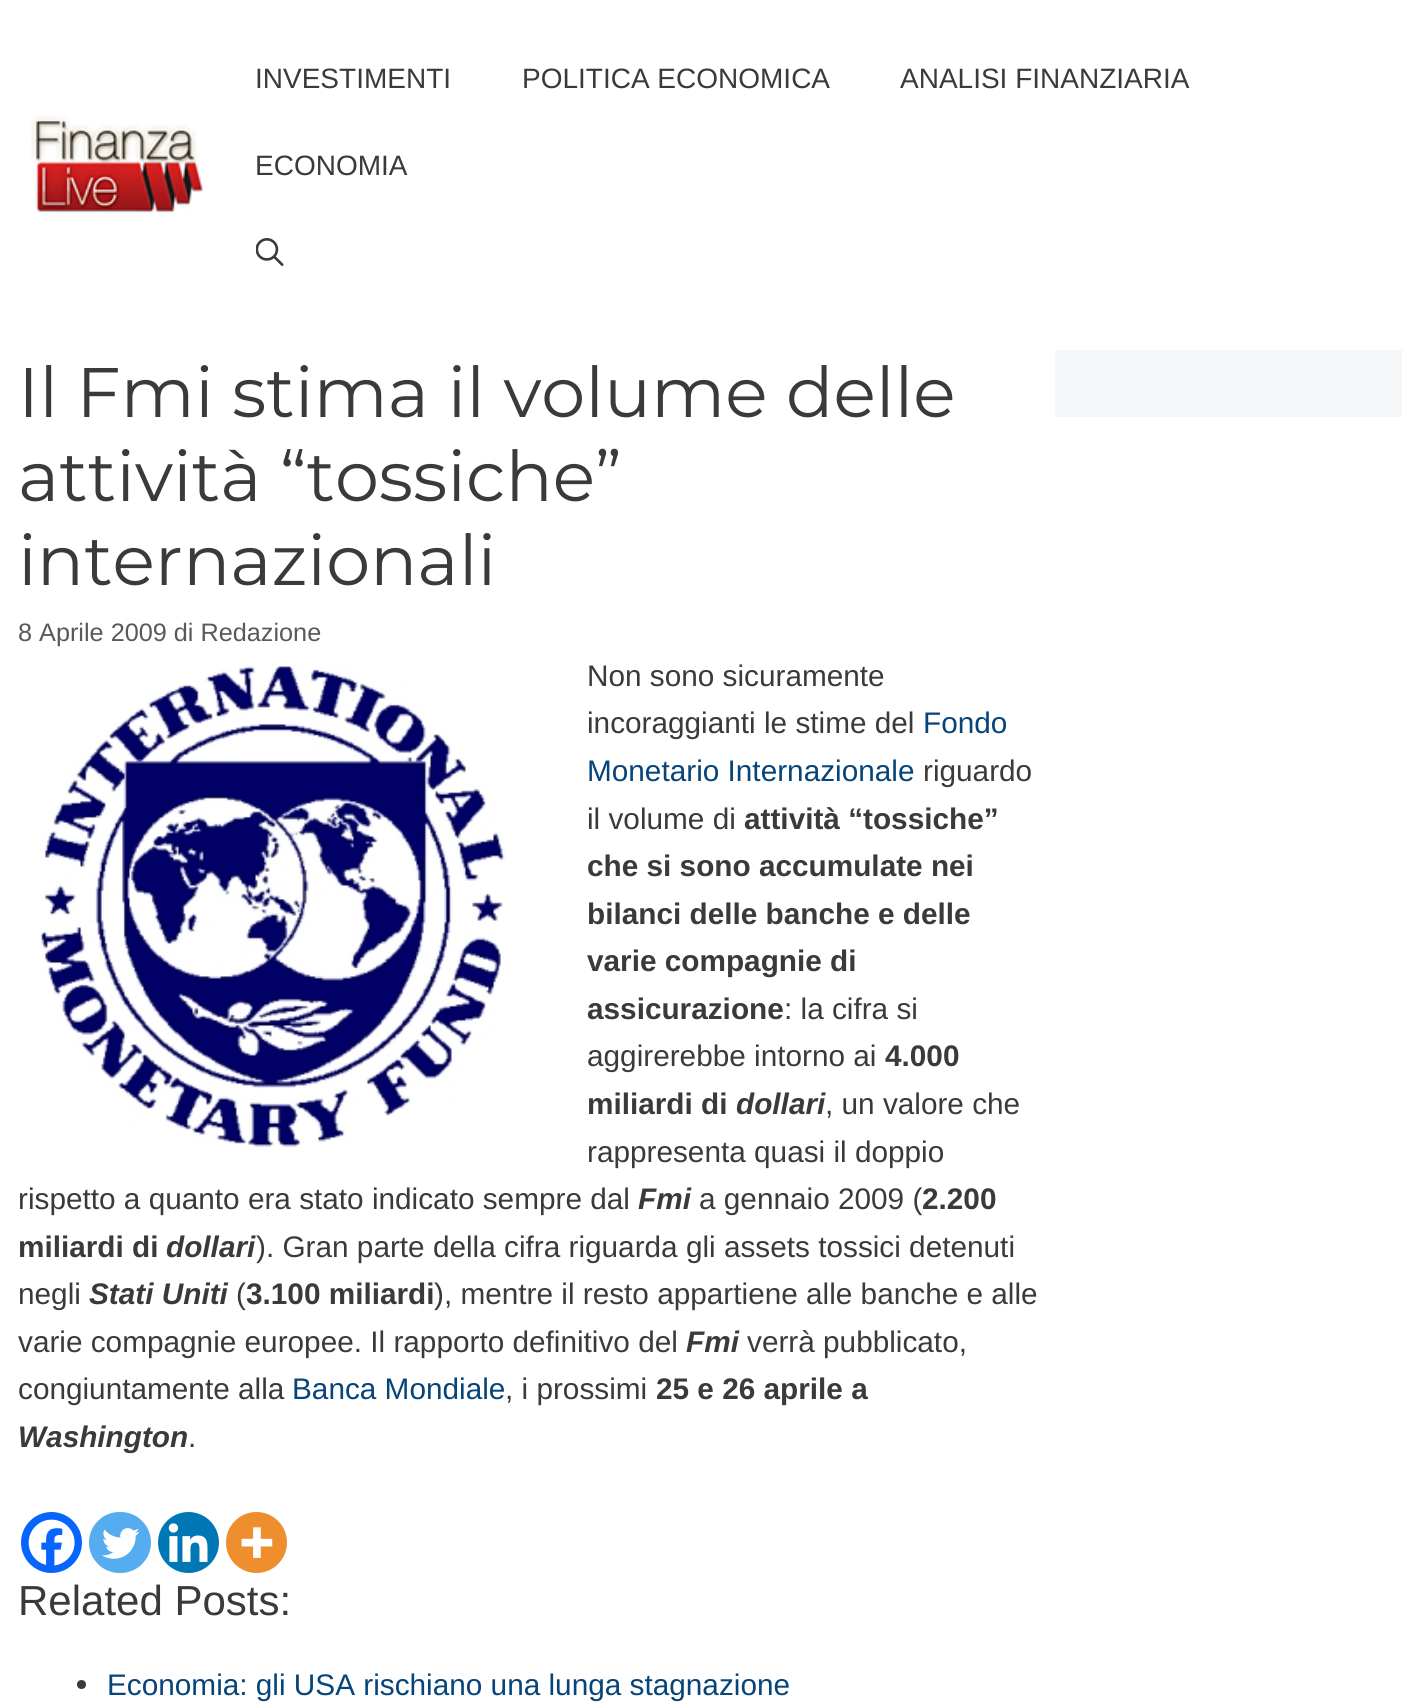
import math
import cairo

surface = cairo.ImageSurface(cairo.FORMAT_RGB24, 1419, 1708)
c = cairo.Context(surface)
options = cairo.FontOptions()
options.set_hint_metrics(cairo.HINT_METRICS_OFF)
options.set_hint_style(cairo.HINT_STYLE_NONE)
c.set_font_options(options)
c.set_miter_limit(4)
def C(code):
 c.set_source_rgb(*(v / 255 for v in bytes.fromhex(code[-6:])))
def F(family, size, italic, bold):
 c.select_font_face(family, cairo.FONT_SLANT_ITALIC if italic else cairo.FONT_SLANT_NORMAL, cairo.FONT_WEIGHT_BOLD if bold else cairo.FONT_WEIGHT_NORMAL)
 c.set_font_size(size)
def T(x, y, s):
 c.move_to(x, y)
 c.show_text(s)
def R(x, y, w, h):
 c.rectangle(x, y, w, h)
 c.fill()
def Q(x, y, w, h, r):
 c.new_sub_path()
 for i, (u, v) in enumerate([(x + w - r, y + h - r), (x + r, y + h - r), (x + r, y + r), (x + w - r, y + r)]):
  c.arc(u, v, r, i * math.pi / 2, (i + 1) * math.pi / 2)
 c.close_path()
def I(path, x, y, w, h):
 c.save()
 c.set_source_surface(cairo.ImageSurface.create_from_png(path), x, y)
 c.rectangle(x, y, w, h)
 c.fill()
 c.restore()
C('ffffff')
c.paint()
I('1.png',30,115,174,98)
F('Liberation Sans',28,0,0)
C('3a3a3a')
T(255,88,'INVESTIMENTI')
T(522,88,'POLITICA ECONOMICA')
T(900,88,'ANALISI FINANZIARIA')
T(255,175,'ECONOMIA')
I('2.png',256,238,28,28)
F('Montserrat',70,0,0)
T(18,417,'Il Fmi stima il volume delle')
T(18,501,'attività “tossiche”')
T(18,585,'internazionali')
F('Liberation Sans',25.25,0,0)
C('595959')
T(18,641,'8 Aprile 2009 di Redazione')
I('3.png',40,666,465,481)
F('Liberation Sans',29.75,0,0)
C('3a3a3a')
T(587,686,'Non sono sicuramente')
T(587,733,'incoraggianti le stime del')
C('06447a')
T(923,733,'Fondo')
T(587,781,'Monetario Internazionale')
C('3a3a3a')
T(923,781,'riguardo')
T(587,829,'il volume di')
F('Liberation Sans',29.75,0,1)
T(744,829,'attività “tossiche”')
T(587,876,'che si sono accumulate nei')
T(587,924,'bilanci delle banche e delle')
T(587,971,'varie compagnie di')
T(587,1019,'assicurazione')
F('Liberation Sans',29.75,0,0)
T(784,1019,': la cifra si')
T(587,1066,'aggirerebbe intorno ai')
F('Liberation Sans',29.75,0,1)
T(885,1066,'4.000')
T(587,1114,'miliardi di')
F('Liberation Sans',29.75,1,1)
T(736,1114,'dollari')
F('Liberation Sans',29.75,0,0)
T(825,1114,', un valore che')
T(587,1162,'rappresenta quasi il doppio')
T(18,1209,'rispetto a quanto era stato indicato sempre dal')
F('Liberation Sans',29.75,1,1)
T(638,1209,'Fmi')
F('Liberation Sans',29.75,0,0)
T(699,1209,'a gennaio 2009 (')
F('Liberation Sans',29.75,0,1)
T(922,1209,'2.200')
T(18,1257,'miliardi di')
F('Liberation Sans',29.75,1,1)
T(166,1257,'dollari')
F('Liberation Sans',29.75,0,0)
T(256,1257,'). Gran parte della cifra riguarda gli assets tossici detenuti')
T(18,1304,'negli')
F('Liberation Sans',29.75,1,1)
T(89,1304,'Stati Uniti')
F('Liberation Sans',29.75,0,0)
T(236,1304,'(')
F('Liberation Sans',29.75,0,1)
T(246,1304,'3.100 miliardi')
F('Liberation Sans',29.75,0,0)
T(434,1304,'), mentre il resto appartiene alle banche e alle')
T(18,1352,'varie compagnie europee. Il rapporto definitivo del')
F('Liberation Sans',29.75,1,1)
T(686,1352,'Fmi')
F('Liberation Sans',29.75,0,0)
T(747,1352,'verrà pubblicato,')
T(18,1399,'congiuntamente alla')
C('06447a')
T(292,1399,'Banca Mondiale')
C('3a3a3a')
T(505,1399,', i prossimi')
F('Liberation Sans',29.75,0,1)
T(656,1399,'25 e 26 aprile a')
F('Liberation Sans',29.75,1,1)
T(18,1447,'Washington')
F('Liberation Sans',29.75,0,0)
T(188,1447,'.')
C('0765fe')
c.new_path()
c.arc(51.5,1542.5,30.5,0,2 * math.pi)
c.fill()
I('4.png',28,1519,47,47)
C('55acee')
Q(89,1512,62,61,30.5)
c.fill()
I('5.png',102,1528,38,31)
C('0077b5')
c.arc(188.5,1542.5,30.5,0,2 * math.pi)
c.fill()
I('6.png',168,1523,40,39)
C('ee8e2d')
c.arc(256.5,1542.5,30.5,0,2 * math.pi)
c.fill()
I('7.png',241,1527,32,31)
F('Liberation Sans',42,0,0)
C('3a3a3a')
T(18,1615,'Related Posts:')
c.new_path()
c.arc(81.5,1684.5,4.5,0,2 * math.pi)
c.fill()
F('Liberation Sans',29.75,0,0)
C('06447a')
T(107,1695,'Economia: gli USA rischiano una lunga stagnazione')
C('f4f6f7')
R(1055,350,347,67)
surface.write_to_png('o.png')
